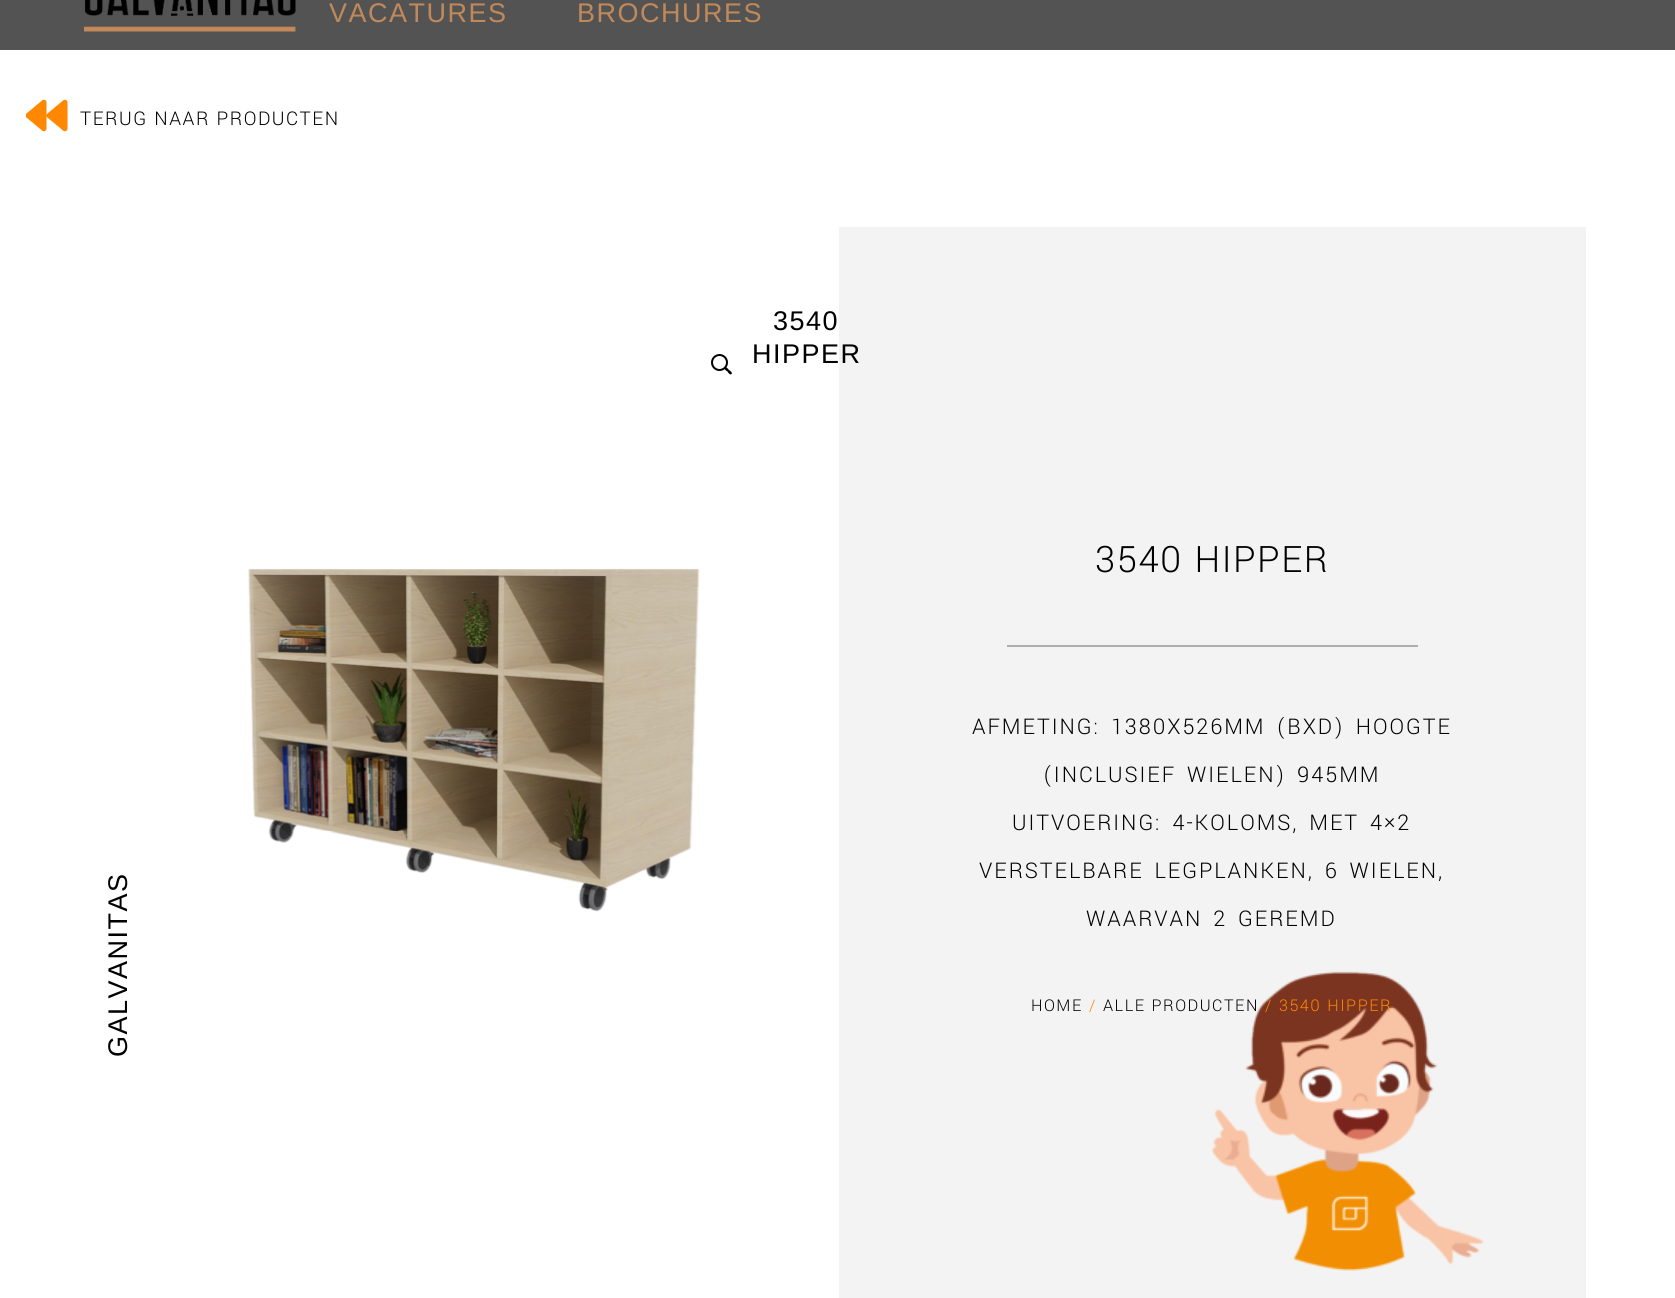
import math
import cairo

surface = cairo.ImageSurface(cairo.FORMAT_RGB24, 1675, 1298)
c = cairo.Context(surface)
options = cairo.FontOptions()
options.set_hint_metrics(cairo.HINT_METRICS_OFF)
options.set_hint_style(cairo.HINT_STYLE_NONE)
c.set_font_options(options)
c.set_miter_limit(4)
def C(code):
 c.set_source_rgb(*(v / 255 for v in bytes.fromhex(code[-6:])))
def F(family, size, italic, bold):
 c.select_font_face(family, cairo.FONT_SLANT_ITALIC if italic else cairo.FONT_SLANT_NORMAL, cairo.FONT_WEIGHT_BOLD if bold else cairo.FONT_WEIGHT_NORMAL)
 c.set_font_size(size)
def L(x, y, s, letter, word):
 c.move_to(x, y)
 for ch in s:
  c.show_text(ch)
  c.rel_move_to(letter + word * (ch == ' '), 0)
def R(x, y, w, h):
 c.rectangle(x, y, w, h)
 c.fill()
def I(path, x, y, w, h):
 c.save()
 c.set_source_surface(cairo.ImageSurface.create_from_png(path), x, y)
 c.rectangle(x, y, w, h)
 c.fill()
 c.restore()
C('ffffff')
c.paint()
C('535353')
R(0,0,1675,50)
I('1.png',84,0,212,32)
F('Liberation Sans',27,0,0)
C('c1895a')
L(329,22,'VACATURES',1.5,0)
L(577,22,'BROCHURES',1.5,0)
I('2.png',26,99,42,33)
F('Yantramanav Light',21,0,0)
C('000000')
L(80,125,'TERUG NAAR PRODUCTEN',1.5,0)
F('Liberation Sans',27,0,0)
L(773,330,'3540',1.5,0)
C('f3f3f3')
R(839,227,747,1071)
C('000000')
L(752,363,'HIPPER',1.5,0)
c.new_path()
c.arc(719.5,362.5,7.5,0,2 * math.pi)
c.stroke()
c.new_path()
c.move_to(725,367.5)
c.curve_to(726,366,728.5,369.5,729,370)
c.curve_to(730,370.5,733,373,731.5,374)
c.curve_to(730,375.5,728,372.5,727.5,371.5)
c.curve_to(726.5,371,723.5,369,725,367.5)
c.close_path()
c.fill()
I('3.png',248,568,452,344)
c.save()
c.translate(127,1057)
c.rotate(-90 * math.pi / 180)
L(0,0,'GALVANITAS',1.5,0)
c.restore()
I('4.png',1211,971,273,300)
F('Yantramanav Light',40.5,0,0)
L(1095,572,'3540 HIPPER',1.5,0)
C('adadad')
R(1007,645,411,2)
F('Yantramanav Light',24,0,0)
C('000000')
L(972,734,'AFMETING: 1380X526MM (BXD) HOOGTE',1.95,3)
L(1043,782,'(INCLUSIEF WIELEN) 945MM',1.95,3)
L(1012,830,'UITVOERING: 4-KOLOMS, MET 4×2',1.95,3)
L(979,878,'VERSTELBARE LEGPLANKEN, 6 WIELEN,',1.95,3)
L(1086,926,'WAARVAN 2 GEREMD',1.95,3)
F('Yantramanav Light',18,0,0)
L(1031,1011,'HOME',1.5,0)
C('ff8800')
L(1089,1011,'/',1.5,0)
C('000000')
L(1103,1011,'ALLE PRODUCTEN',1.5,0)
C('ff8800')
L(1265,1011,'/ 3540 HIPPER',1.5,0)
surface.write_to_png('o.png')
